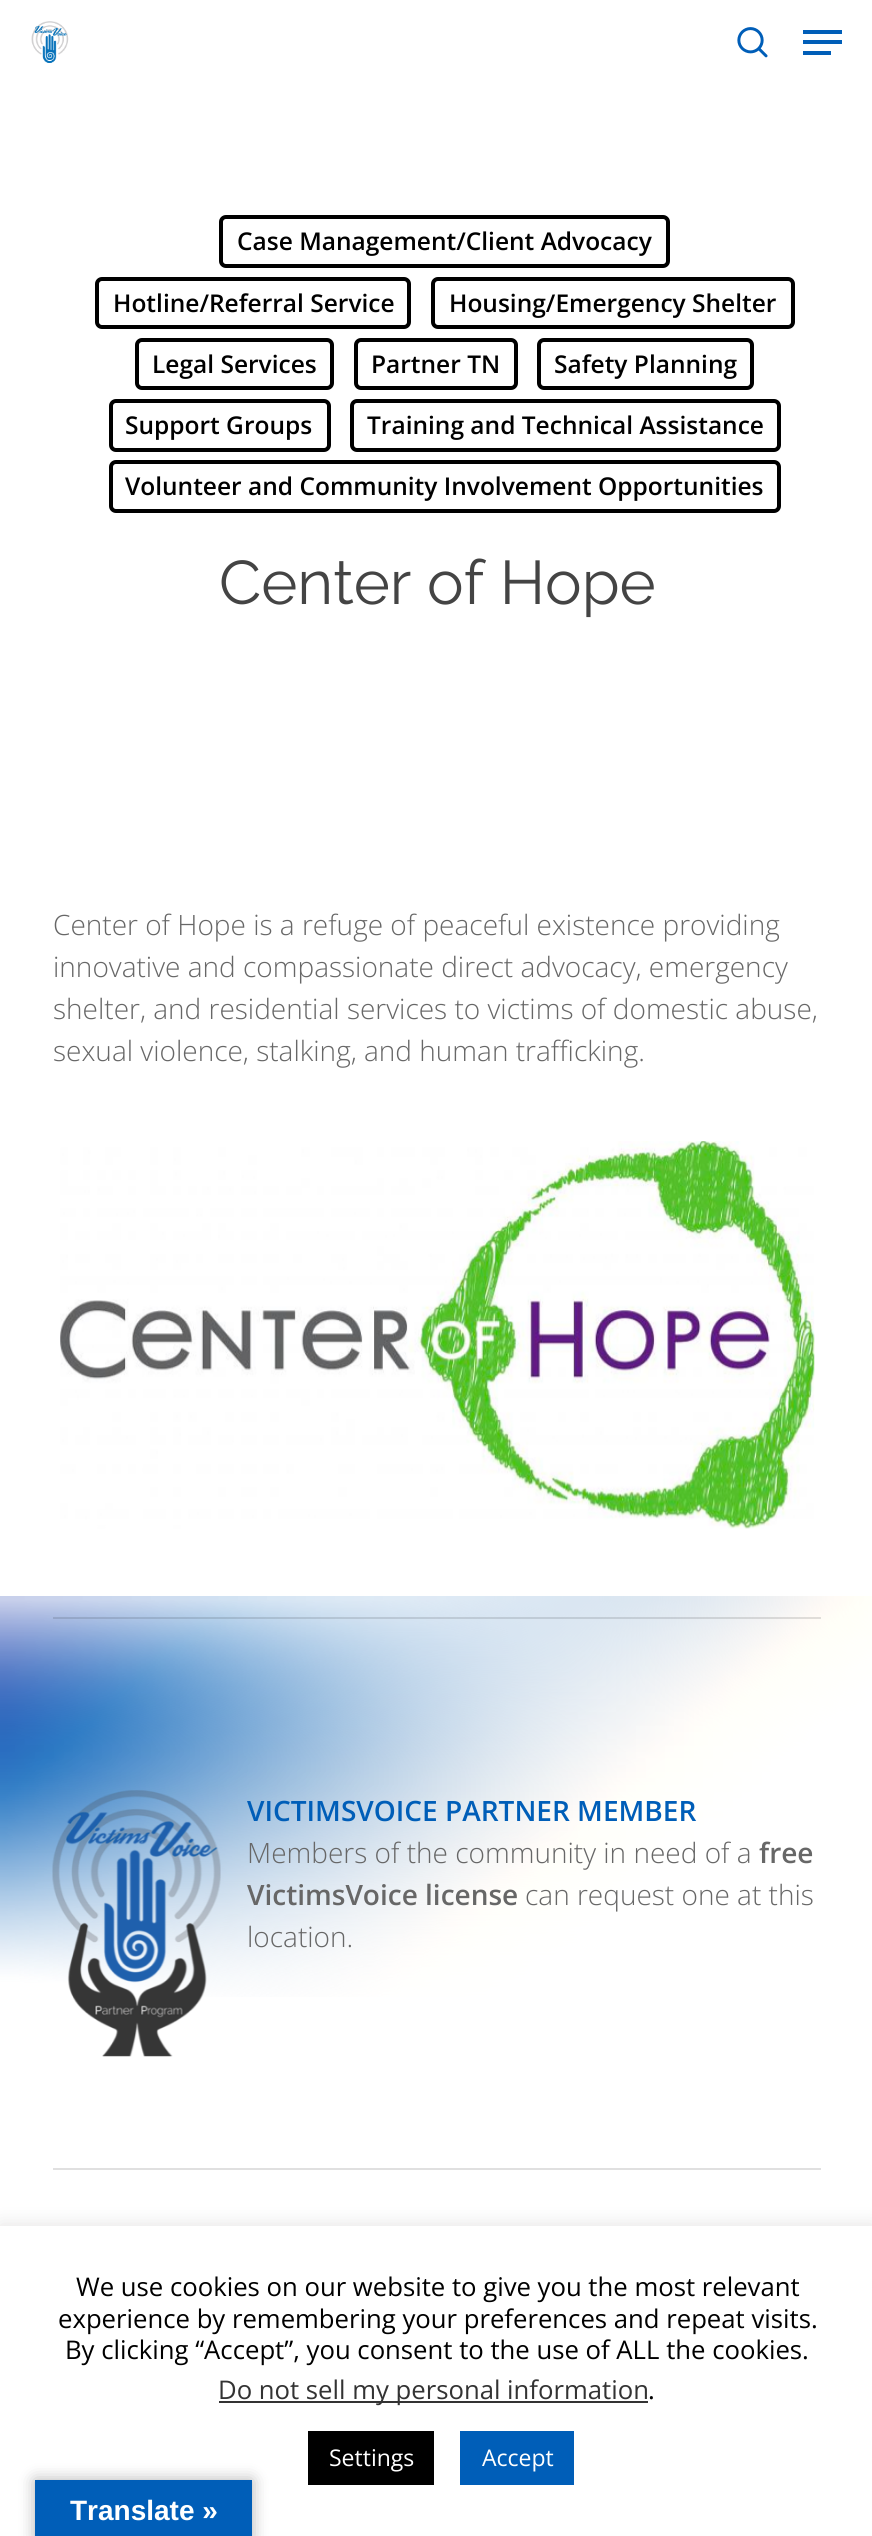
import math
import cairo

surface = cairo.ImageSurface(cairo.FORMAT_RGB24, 872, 2536)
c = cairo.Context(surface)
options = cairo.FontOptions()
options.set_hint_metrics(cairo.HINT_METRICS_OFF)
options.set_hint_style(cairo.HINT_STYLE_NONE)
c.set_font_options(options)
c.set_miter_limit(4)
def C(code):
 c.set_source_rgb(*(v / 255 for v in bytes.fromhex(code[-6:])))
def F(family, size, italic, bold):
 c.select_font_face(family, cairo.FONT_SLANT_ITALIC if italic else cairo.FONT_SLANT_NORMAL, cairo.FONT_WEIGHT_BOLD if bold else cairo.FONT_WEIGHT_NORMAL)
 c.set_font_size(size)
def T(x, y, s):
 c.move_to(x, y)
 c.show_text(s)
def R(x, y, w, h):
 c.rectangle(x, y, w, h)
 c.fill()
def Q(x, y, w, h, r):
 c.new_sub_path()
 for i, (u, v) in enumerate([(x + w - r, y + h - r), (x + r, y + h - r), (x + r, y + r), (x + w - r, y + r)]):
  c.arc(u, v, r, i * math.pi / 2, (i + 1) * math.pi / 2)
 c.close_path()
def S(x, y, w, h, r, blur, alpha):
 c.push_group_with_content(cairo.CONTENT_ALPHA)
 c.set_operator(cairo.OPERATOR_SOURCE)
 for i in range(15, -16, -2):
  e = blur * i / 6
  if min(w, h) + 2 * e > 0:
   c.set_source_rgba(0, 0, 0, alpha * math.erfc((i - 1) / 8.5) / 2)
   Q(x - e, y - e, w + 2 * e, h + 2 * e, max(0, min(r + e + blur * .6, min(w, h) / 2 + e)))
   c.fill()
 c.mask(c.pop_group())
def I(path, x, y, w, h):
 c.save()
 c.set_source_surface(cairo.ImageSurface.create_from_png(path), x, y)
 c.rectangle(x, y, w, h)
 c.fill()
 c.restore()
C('ffffff')
c.paint()
I('1.png',31,21,38,42)
I('2.png',737,27,31,31)
C('005eb8')
R(803,30,39,4)
R(803,51,28,4)
R(803,40,39,4)
Q(221,217,447,49,5)
C('000000')
c.set_line_width(4)
c.stroke()
F('Open Sans SemiBold',24.5,0,0)
T(237,250,'Case Management/Client Advocacy')
Q(97,279,312,48,5)
c.stroke()
T(113,312,'Hotline/Referral Service')
Q(433,279,360,48,5)
c.stroke()
T(449,312,'Housing/Emergency Shelter')
Q(137,340,195,48,5)
c.stroke()
T(152,373,'Legal Services')
Q(356,340,160,48,5)
c.stroke()
T(371,373,'Partner TN')
Q(539,340,213,48,5)
c.stroke()
T(554,373,'Safety Planning')
Q(111,401,218,49,5)
c.stroke()
T(125,434,'Support Groups')
Q(352,401,427,49,5)
c.stroke()
T(367,434,'Training and Technical Assistance')
Q(111,462,668,49,5)
c.stroke()
T(125,495,'Volunteer and Community Involvement Opportunities')
F('Raleway',61.5,0,0)
C('444444')
T(219,604,'Center of Hope')
F('Open Sans Light',28,0,0)
C('676767')
T(53,935,'Center of Hope is a refuge of peaceful existence providing')
T(53,977,'innovative and compassionate direct advocacy, emergency')
T(53,1019,'shelter, and residential services to victims of domestic abuse,')
T(53,1061,'sexual violence, stalking, and human trafficking.')
I('3.png',60,1141,755,388)
I('4.png',0,1596,872,401)
c.set_source_rgba(0,0,0,0.12)
R(53,1617,768,2)
I('5.png',52,1790,169,267)
F('Open Sans SemiBold',28,0,0)
C('005eb8')
T(247,1821,'VICTIMSVOICE PARTNER MEMBER')
F('Open Sans Light',28,0,0)
C('676767')
T(247,1863,'Members of the community in need of a')
F('Open Sans SemiBold',28,0,0)
T(759,1863,'free')
T(247,1905,'VictimsVoice license')
F('Open Sans Light',28,0,0)
T(525,1905,'can request one at this')
T(247,1947,'location.')
C('e0e0e0')
R(53,2168,768,2)
C('acabab')
S(0,2224,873,312,0,9,.3)
C('ffffff')
R(0,2226,872,310)
F('Open Sans',25.7,0,0)
C('000000')
T(76,2296,'We use cookies on our website to give you the most relevant')
T(58,2328,'experience by remembering your preferences and repeat visits.')
T(65,2359,'By clicking “Accept”, you consent to the use of ALL the cookies.')
C('333333')
R(219,2401,429,2)
T(218,2399,'Do not sell my personal information')
C('000000')
T(648,2399,'.')
R(308,2431,126,54)
F('Open Sans',23,0,0)
C('ffffff')
T(329,2466,'Settings')
C('005eb8')
R(460,2431,114,54)
C('ffffff')
T(482,2466,'Accept')
C('000000')
S(35,2480,217,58,0,8,.3)
C('005eb8')
R(35,2480,217,56)
F('Liberation Sans',28,0,1)
C('ffffff')
T(70,2520,'Translate »')
surface.write_to_png('o.png')
